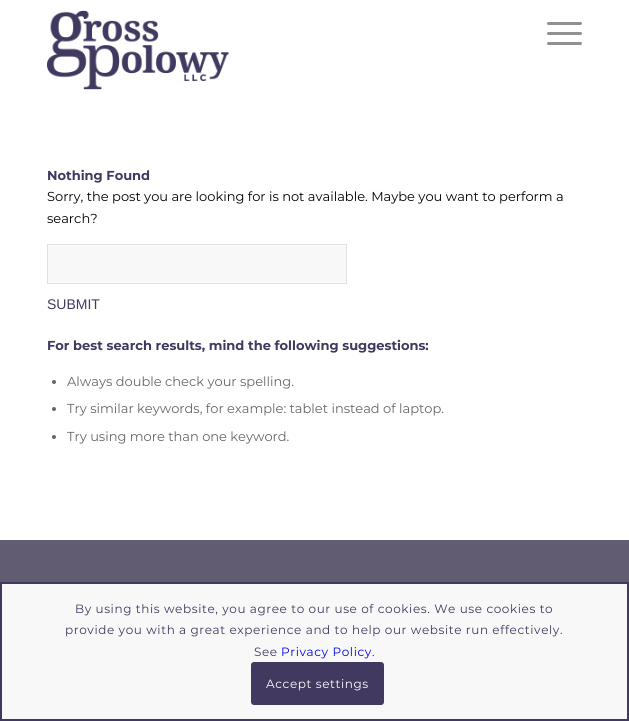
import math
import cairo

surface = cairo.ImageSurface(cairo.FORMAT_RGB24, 629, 721)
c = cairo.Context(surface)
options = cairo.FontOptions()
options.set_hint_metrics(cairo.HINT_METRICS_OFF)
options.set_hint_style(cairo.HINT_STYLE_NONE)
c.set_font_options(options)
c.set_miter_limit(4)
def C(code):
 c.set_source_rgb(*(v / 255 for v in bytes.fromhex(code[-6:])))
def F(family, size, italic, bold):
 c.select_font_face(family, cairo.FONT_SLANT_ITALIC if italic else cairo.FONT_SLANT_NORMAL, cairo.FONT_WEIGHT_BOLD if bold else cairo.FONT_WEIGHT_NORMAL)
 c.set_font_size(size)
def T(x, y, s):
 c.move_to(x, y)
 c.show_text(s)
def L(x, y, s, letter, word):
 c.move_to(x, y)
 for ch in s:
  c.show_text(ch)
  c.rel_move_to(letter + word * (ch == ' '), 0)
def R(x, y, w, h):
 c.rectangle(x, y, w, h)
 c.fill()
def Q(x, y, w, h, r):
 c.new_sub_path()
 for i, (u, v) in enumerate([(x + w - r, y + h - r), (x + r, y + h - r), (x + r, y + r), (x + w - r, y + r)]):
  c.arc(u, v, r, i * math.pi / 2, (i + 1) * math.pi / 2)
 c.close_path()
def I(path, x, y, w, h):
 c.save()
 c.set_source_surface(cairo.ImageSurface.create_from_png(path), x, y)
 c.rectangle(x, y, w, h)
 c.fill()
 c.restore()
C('ffffff')
c.paint()
I('1.png',47,10,182,80)
C('919191')
Q(547,32,35,3,1.5)
c.fill()
Q(547,22,35,3,1.5)
c.fill()
Q(547,42,35,3,1.5)
c.fill()
F('Montserrat',13,0,1)
C('41395f')
T(47,180,'Nothing Found')
F('Montserrat',13,0,0)
C('000000')
T(47,201,'Sorry, the post you are looking for is not available. Maybe you want to perform a')
T(47,223,'search?')
C('f8f8f8')
c.rectangle(47.5,244.5,299,39)
c.fill_preserve()
C('e1e1e1')
c.set_line_width(1)
c.stroke()
F('Liberation Sans',14,0,0)
C('41395f')
T(47,309,'SUBMIT')
F('Montserrat',13,0,1)
T(47,350,'For best search results, mind the following suggestions:')
C('666666')
c.new_path()
c.arc(54,382,2,0,2 * math.pi)
c.fill()
F('Montserrat',13,0,0)
T(67,386,'Always double check your spelling.')
c.new_path()
c.arc(54,409,2,0,2 * math.pi)
c.fill()
T(67,413,'Try similar keywords, for example: tablet instead of laptop.')
c.new_path()
c.arc(54,437,2,0,2 * math.pi)
c.fill()
T(67,441,'Try using more than one keyword.')
C('615c71')
R(0,540,629,42)
C('f8f8f8')
c.rectangle(1,583,627,137)
c.fill_preserve()
C('41395f')
c.set_line_width(2)
c.stroke()
F('Montserrat',12,0,0)
L(75,613,'By using this website, you agree to our use of cookies. We use cookies to',.6,0)
L(65,634,'provide you with a great experience and to help our website run effectively.',.6,0)
L(254,656,'See',.6,0)
C('0000ee')
L(281,656,'Privacy Policy',.6,0)
C('41395f')
L(372,656,'.',.6,0)
Q(251,662,133,43,3)
c.fill()
C('ffffff')
L(266,688,'Accept settings',.6,0)
surface.write_to_png('o.png')
